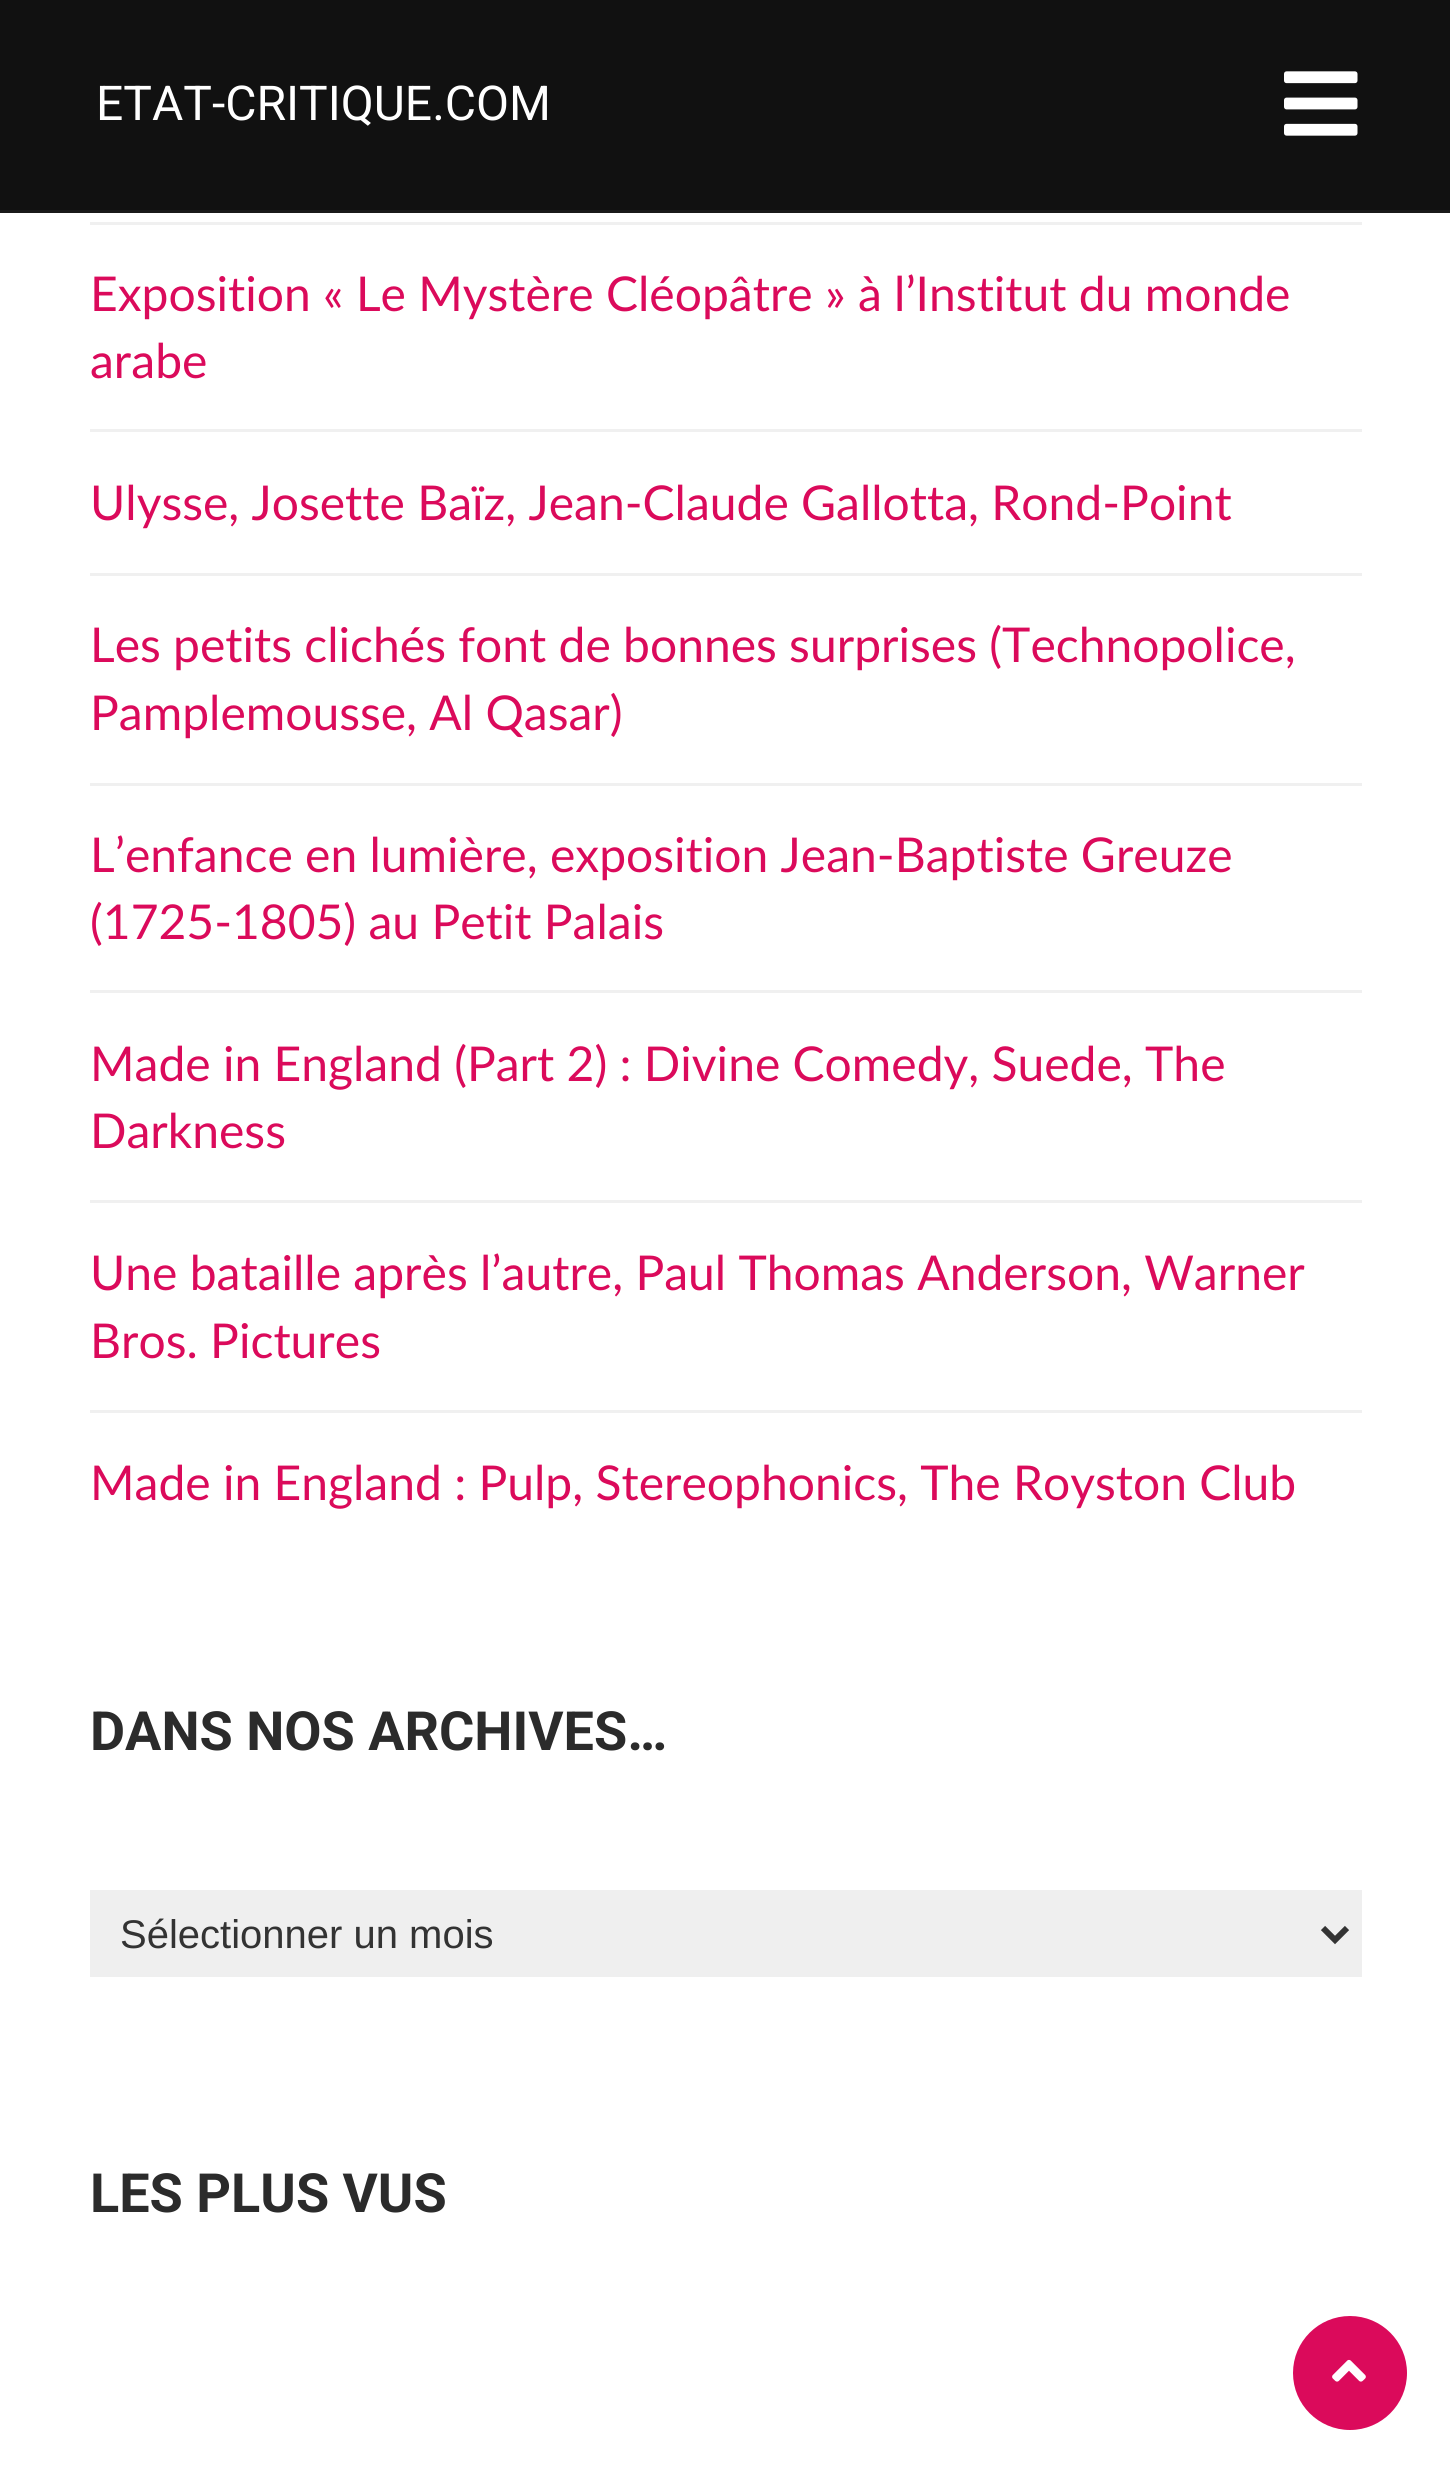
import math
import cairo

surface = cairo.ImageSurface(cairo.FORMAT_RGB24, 1450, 2475)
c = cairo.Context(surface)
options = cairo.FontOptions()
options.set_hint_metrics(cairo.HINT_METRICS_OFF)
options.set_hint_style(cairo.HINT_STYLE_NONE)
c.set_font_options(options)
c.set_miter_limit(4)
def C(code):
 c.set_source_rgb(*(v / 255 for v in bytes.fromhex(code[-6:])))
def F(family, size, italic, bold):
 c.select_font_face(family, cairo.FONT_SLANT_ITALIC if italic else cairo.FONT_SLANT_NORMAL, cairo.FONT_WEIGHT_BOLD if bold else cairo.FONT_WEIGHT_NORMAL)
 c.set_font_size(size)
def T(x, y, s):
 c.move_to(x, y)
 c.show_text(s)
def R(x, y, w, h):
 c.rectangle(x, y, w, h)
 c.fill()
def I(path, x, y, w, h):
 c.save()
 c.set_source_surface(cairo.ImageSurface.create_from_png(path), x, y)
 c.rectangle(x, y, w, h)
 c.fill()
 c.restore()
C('ffffff')
c.paint()
C('111111')
R(0,0,1450,210)
C('191919')
R(0,210,1450,3)
F('Roboto',48,0,0)
C('ffffff')
T(96,120,'ETAT-CRITIQUE.COM')
I('1.png',1284,71,74,65)
C('f0f0f0')
R(90,222,1272,3)
R(90,429,1272,3)
F('Lato',48,0,0)
C('db0a5b')
T(90,311,'Exposition « Le Mystère Cléopâtre » à l’Institut du monde')
T(90,378,'arabe')
C('f0f0f0')
R(90,573,1272,3)
C('db0a5b')
T(90,520,'Ulysse, Josette Baïz, Jean-Claude Gallotta, Rond-Point')
C('f0f0f0')
R(90,783,1272,3)
C('db0a5b')
T(90,662,'Les petits clichés font de bonnes surprises (Technopolice,')
T(90,730,'Pamplemousse, Al Qasar)')
C('f0f0f0')
R(90,990,1272,3)
C('db0a5b')
T(90,872,'L’enfance en lumière, exposition Jean-Baptiste Greuze')
T(90,939,'(1725-1805) au Petit Palais')
C('f0f0f0')
R(90,1200,1272,3)
C('db0a5b')
T(90,1081,'Made in England (Part 2) : Divine Comedy, Suede, The')
T(90,1148,'Darkness')
C('f0f0f0')
R(90,1410,1272,3)
C('db0a5b')
T(90,1290,'Une bataille après l’autre, Paul Thomas Anderson, Warner')
T(90,1358,'Bros. Pictures')
T(90,1500,'Made in England : Pulp, Stereophonics, The Royston Club')
F('Roboto',54,0,1)
C('2b2b2b')
T(90,1750,'DANS NOS ARCHIVES…')
C('efefef')
R(90,1890,1272,87)
c.new_path()
c.move_to(1323,1928)
c.line_to(1335,1940)
c.line_to(1347,1928)
C('333333')
c.set_line_width(6)
c.stroke()
F('Liberation Sans',40,0,0)
T(120,1948,'Sélectionner un mois')
F('Roboto',54,0,1)
C('2b2b2b')
T(90,2212,'LES PLUS VUS')
C('db0a5b')
c.new_path()
c.arc(1350,2373,57,0,2 * math.pi)
c.fill()
I('2.png',1332,2359,34,23)
surface.write_to_png('o.png')
